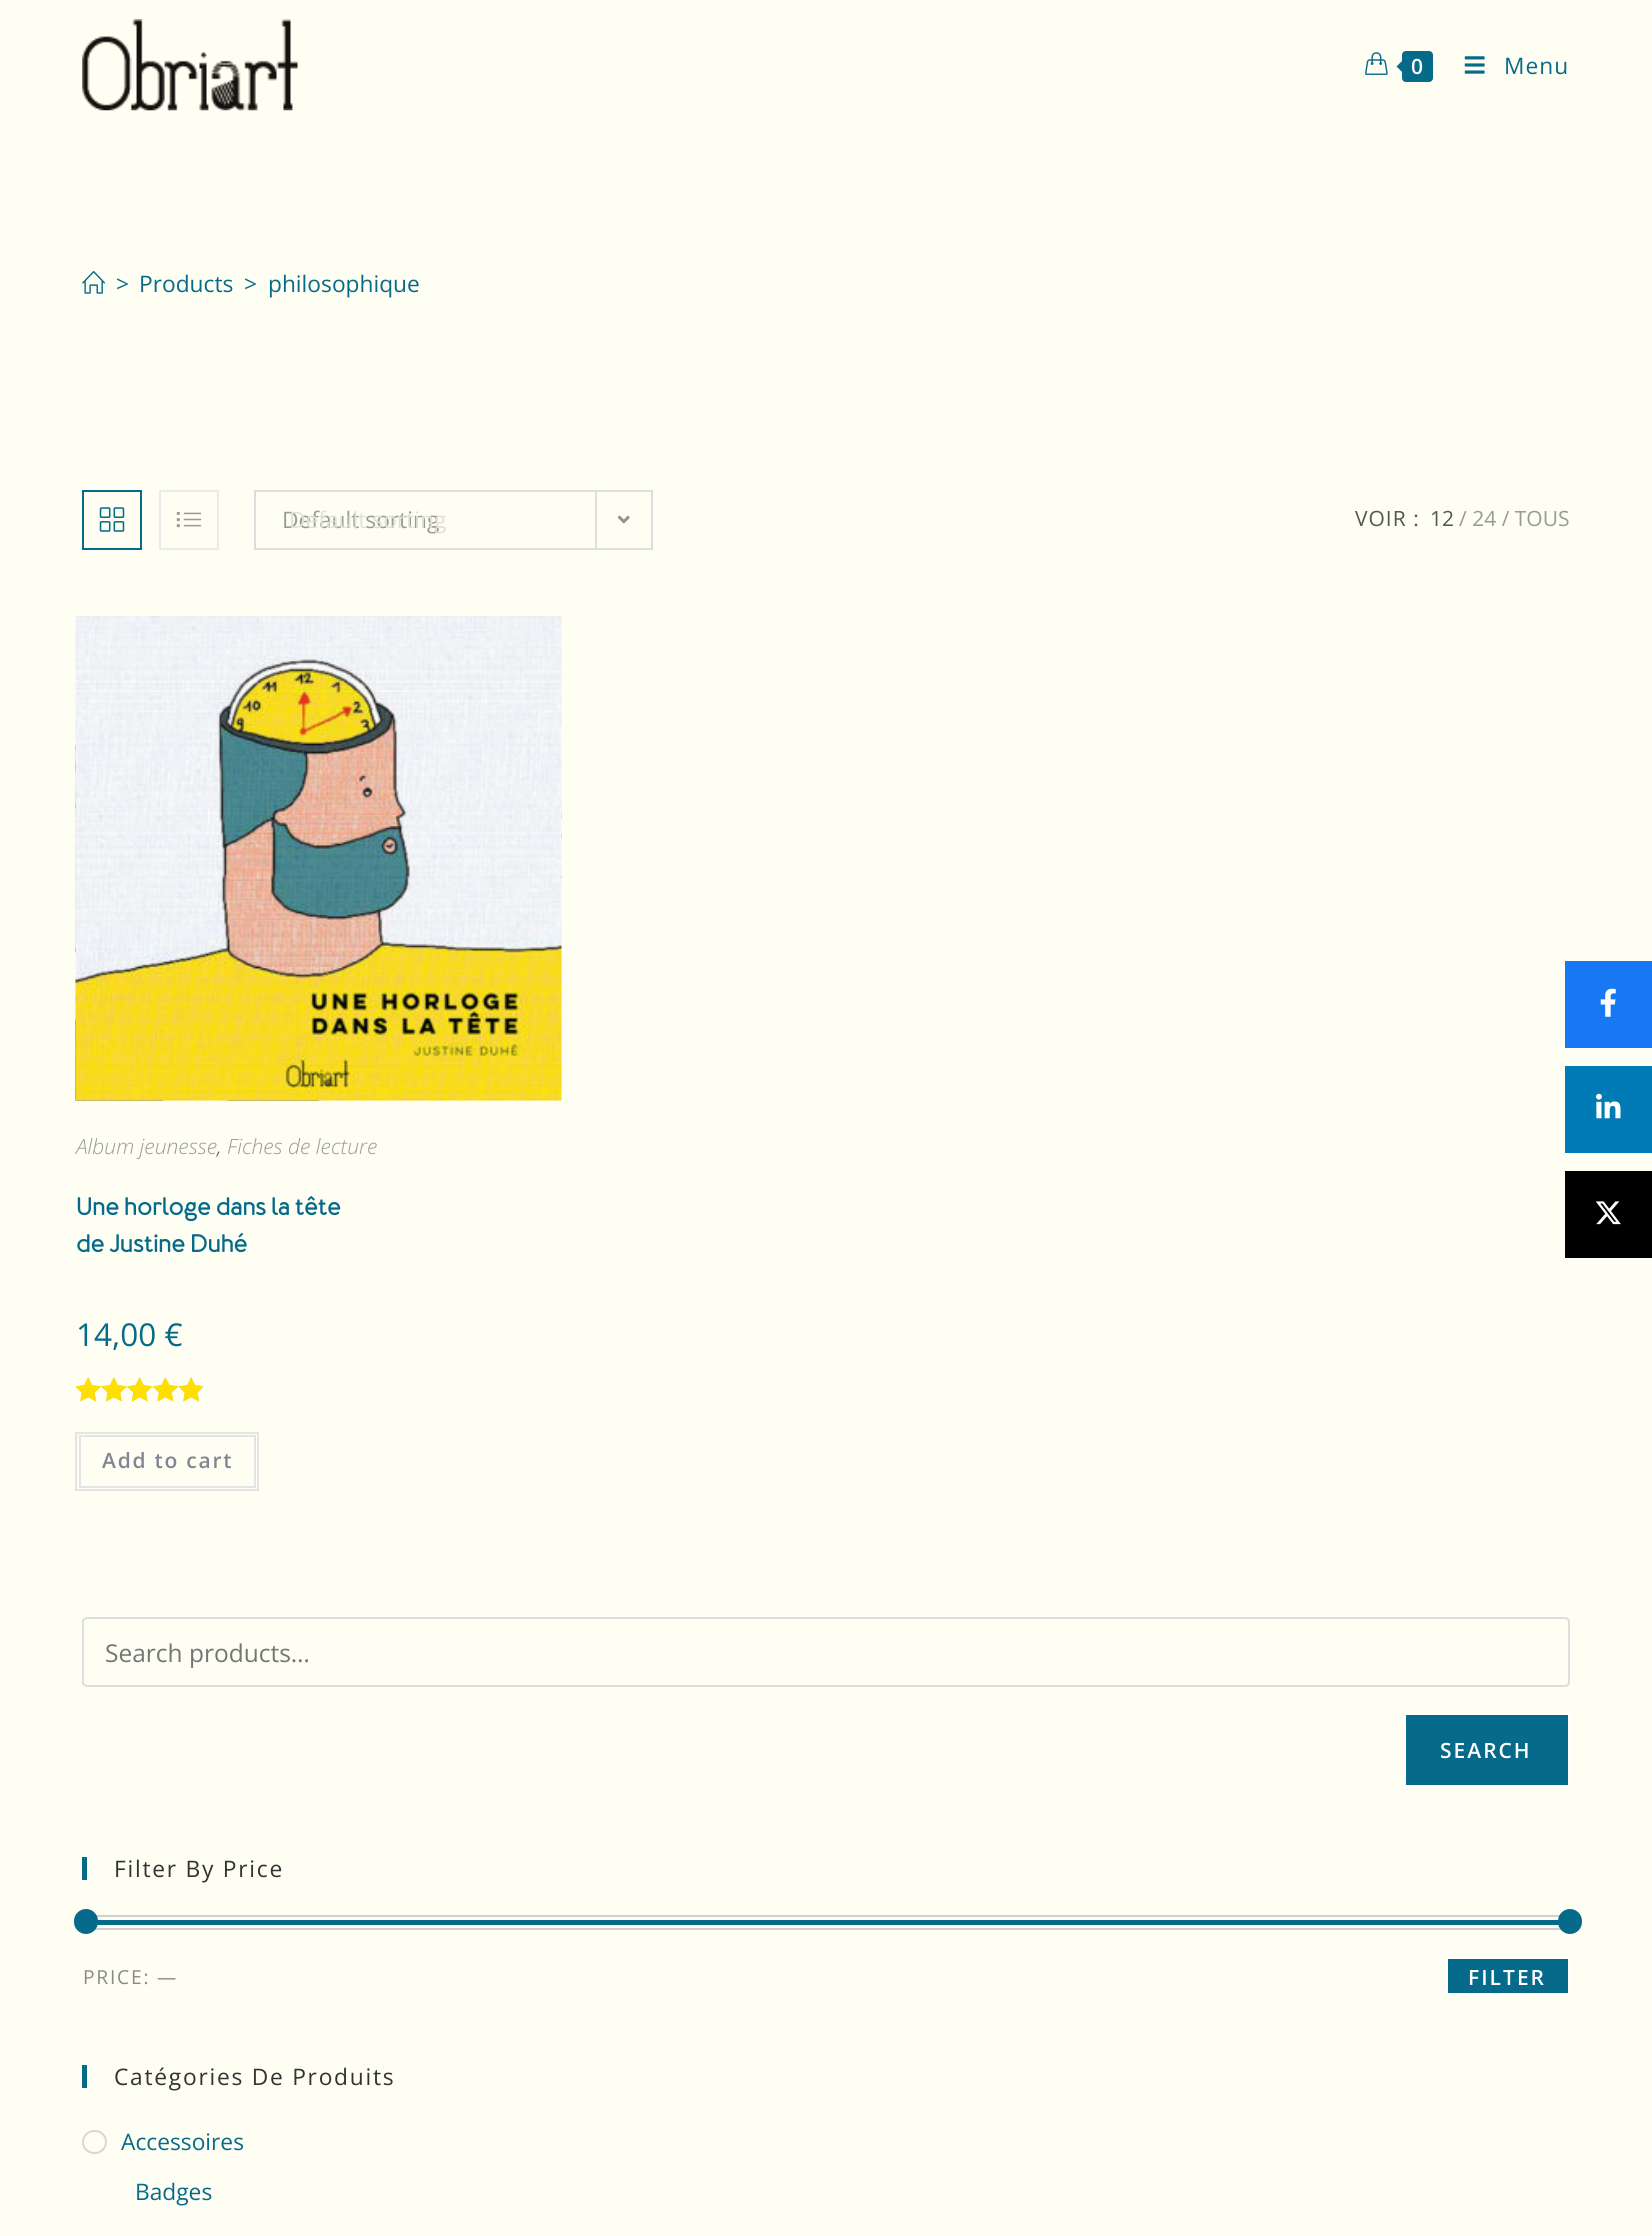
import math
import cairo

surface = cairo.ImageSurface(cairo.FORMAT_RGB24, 1652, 2236)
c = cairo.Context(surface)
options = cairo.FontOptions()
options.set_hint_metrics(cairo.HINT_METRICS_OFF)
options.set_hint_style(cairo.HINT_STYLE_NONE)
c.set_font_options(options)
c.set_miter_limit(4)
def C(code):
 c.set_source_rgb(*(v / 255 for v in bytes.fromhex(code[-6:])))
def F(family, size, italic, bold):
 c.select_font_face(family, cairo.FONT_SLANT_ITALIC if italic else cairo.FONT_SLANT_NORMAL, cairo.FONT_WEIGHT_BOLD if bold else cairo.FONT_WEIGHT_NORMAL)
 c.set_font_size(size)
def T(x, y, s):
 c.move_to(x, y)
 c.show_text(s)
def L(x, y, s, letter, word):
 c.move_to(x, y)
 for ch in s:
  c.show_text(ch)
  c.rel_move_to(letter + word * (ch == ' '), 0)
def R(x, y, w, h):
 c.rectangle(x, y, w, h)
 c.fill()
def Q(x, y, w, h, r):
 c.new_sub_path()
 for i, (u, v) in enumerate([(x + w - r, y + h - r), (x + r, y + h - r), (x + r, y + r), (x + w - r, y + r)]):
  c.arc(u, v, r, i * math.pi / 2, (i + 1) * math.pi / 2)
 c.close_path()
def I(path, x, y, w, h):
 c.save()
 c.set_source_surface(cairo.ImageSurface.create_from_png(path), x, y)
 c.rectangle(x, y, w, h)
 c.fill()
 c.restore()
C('fffef2')
c.paint()
I('1.png',82,19,216,92)
I('2.png',1365,52,23,23)
C('066b8b')
Q(1402,51,31,31,4)
c.fill()
c.new_path()
c.move_to(1405,58)
c.line_to(1405,75)
c.line_to(1396.5,66.5)
c.close_path()
c.fill()
F('Open Sans SemiBold',21,0,0)
C('ffffff')
L(1411,74,'0',1,0)
I('3.png',1464,56,21,18)
F('Open Sans',22.75,0,0)
C('066b8b')
L(1504,74,'Menu',1,0)
I('4.png',82,270,23,24)
T(116,292,'>')
T(139,292,'Products')
T(244,292,'>')
T(268,292,'philosophique')
c.rectangle(83,491,58,58)
c.stroke()
I('5.png',99,507,26,25)
c.rectangle(160,491,58,58)
C('eaeaea')
c.stroke()
I('6.png',176,511,26,17)
c.rectangle(255,491,397,58)
C('dddddd')
c.stroke()
C('999999')
T(282,528,'Default sorting')
C('dddddd')
R(595,492,2,56)
I('7.png',617,515,13,9)
c.new_path()
c.move_to(630.5,516)
c.line_to(637.5,523)
c.line_to(644.5,516)
C('fffef2')
c.set_line_width(3.5)
c.stroke()
C('e1e1d8')
T(289,528,'Default sorting')
F('Open Sans',21,0,0)
C('555555')
L(1355,526,'VOIR :',1,0)
T(1430,526,'12')
C('999999')
T(1459,526,'/ 24 / TOUS')
I('8.png',75,616,487,485)
I('9.png',75,616,487,485)
F('Open Sans Light',21,1,0)
T(76,1154,'Album jeunesse')
C('4a4a4a')
T(217,1154,',')
C('999999')
T(227,1154,'Fiches de lecture')
F('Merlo',24.5,0,1)
C('066b8b')
T(76,1215,'Une horloge dans la tête')
T(76,1252,'de Justine Duhé')
F('Open Sans',31.5,0,0)
T(76,1346,'14,00 €')
I('10.png',75,1377,129,25)
I('11.png',75,1377,126,25)
c.rectangle(76,1433,182,57)
C('e4e4e4')
c.set_line_width(2)
c.stroke()
c.rectangle(80,1436,175,51)
c.stroke()
F('Open Sans SemiBold',21,0,0)
C('848494')
L(102,1468,'Add to cart',1.75,0)
Q(83,1618,1486,68,4)
C('dddddd')
c.stroke()
F('Open Sans',24.5,0,0)
C('757575')
T(105,1662,'Search products…')
C('066b8b')
c.rectangle(1405,1714,164,72)
c.fill_preserve()
C('ffffff')
c.stroke()
F('Open Sans SemiBold',21,0,0)
L(1440,1758,'SEARCH',2,0)
C('066b8b')
R(82,1857,5,23)
F('Open Sans',22.75,0,0)
C('333333')
L(114,1877,'Filter By Price',1.75,0)
c.rectangle(83,1916,1486,13)
C('d0d0d0')
c.stroke()
C('066b8b')
R(97,1920,1462,5)
Q(74,1909,24,25,12)
c.fill()
Q(1558,1909,24,25,12)
c.fill()
F('Open Sans',19.25,0,0)
C('898989')
L(83,1984,'PRICE: —',1.75,0)
C('066b8b')
c.rectangle(1447,1958,122,36)
c.fill_preserve()
C('ffffff')
c.stroke()
F('Open Sans SemiBold',21,0,0)
L(1468,1985,'FILTER',2,0)
C('066b8b')
R(82,2065,5,23)
F('Open Sans',22.75,0,0)
C('333333')
L(114,2085,'Catégories De Produits',1.75,0)
Q(83,2131,23,22,11)
C('d9d8ce')
c.stroke()
C('066b8b')
T(121,2150,'Accessoires')
T(135,2200,'Badges')
C('1877f2')
R(1565,961,87,87)
I('12.png',1600,988,16,29)
C('007bb6')
R(1565,1066,87,87)
I('13.png',1596,1093,25,26)
C('000000')
R(1565,1171,87,87)
I('14.png',1595,1201,26,24)
surface.write_to_png('o.png')
